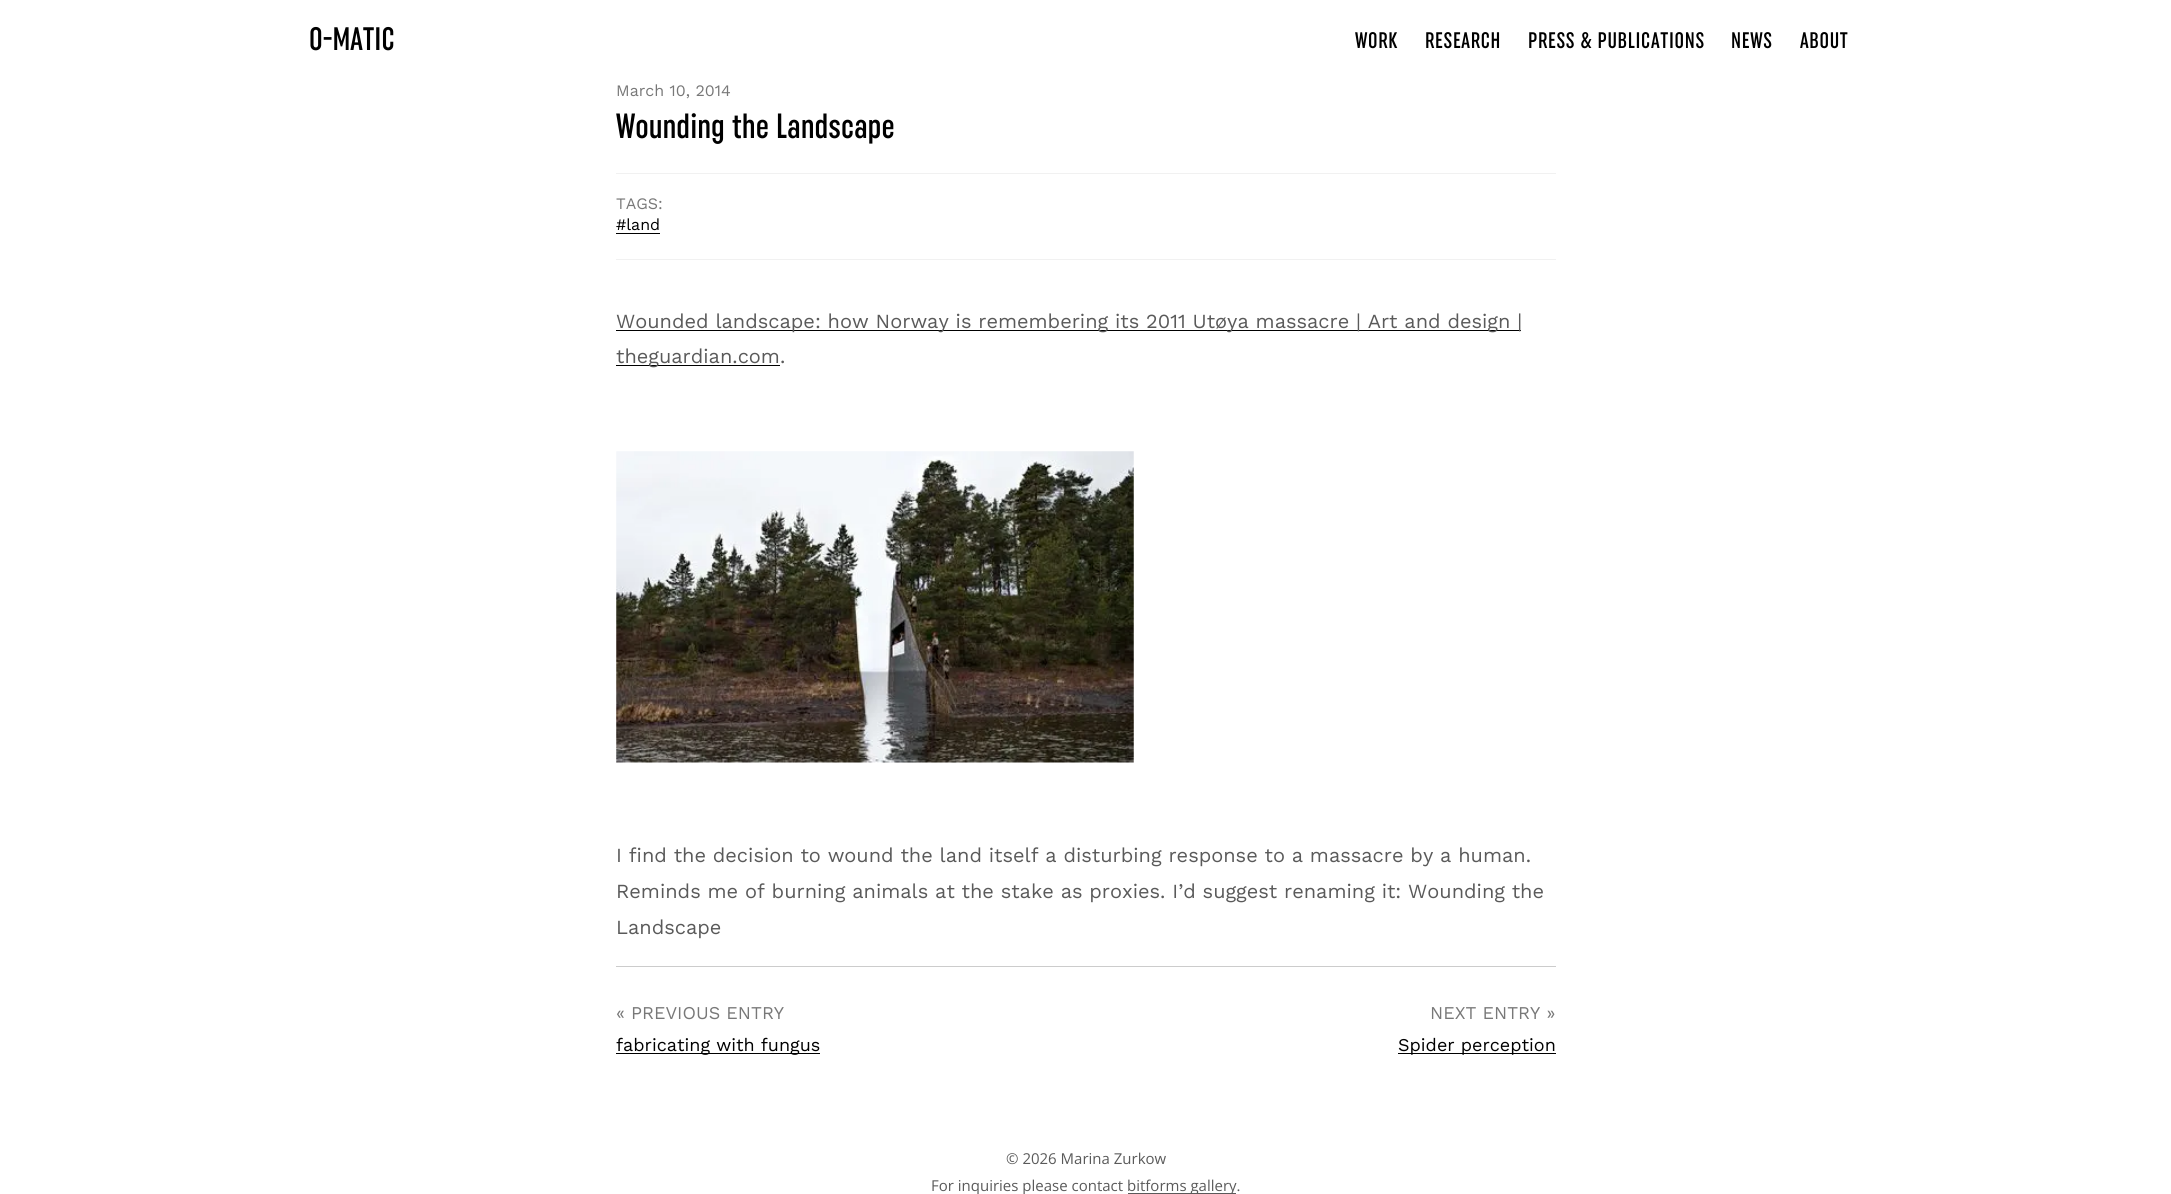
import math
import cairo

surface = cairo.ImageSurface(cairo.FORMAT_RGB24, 2171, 1194)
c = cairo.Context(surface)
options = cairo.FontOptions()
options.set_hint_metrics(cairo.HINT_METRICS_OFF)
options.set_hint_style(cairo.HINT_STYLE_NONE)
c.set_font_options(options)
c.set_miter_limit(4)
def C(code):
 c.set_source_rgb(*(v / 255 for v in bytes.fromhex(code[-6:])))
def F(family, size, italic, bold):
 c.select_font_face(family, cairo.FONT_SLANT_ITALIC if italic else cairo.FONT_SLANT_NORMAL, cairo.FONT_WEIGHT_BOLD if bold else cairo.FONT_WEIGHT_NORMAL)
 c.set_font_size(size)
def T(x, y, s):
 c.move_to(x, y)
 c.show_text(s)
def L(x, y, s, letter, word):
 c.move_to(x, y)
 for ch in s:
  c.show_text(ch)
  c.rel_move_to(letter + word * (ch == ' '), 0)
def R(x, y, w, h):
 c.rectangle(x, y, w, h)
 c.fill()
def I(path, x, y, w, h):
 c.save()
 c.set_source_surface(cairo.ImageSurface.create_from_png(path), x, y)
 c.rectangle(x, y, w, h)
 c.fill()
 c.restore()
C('ffffff')
c.paint()
F('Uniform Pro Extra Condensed',32.5,0,0)
C('000000')
T(309,50,'O-MATIC')
F('Uniform Pro Extra Condensed',22.5,0,0)
L(1355,48,'WORK',.7,0)
L(1425,48,'RESEARCH',.7,0)
L(1528,48,'PRESS & PUBLICATIONS',.7,0)
L(1731,48,'NEWS',.7,0)
L(1800,48,'ABOUT',.7,0)
F('Work Sans',16,0,0)
C('787878')
T(616,96,'March 10, 2014')
F('Uniform Pro Extra Condensed',35,0,0)
C('000000')
T(616,138,'Wounding the Landscape')
C('f1f1f1')
R(616,173,940,1)
R(616,259,940,1)
F('Work Sans',16,0,0)
C('787878')
T(616,209,'TAGS:')
C('000000')
T(616,230,'#land')
R(616,233,44,1)
R(616,330,905,1)
F('Work Sans',20,0,0)
C('5a5a5a')
T(616,328,'Wounded landscape: how Norway is remembering its 2011 Utøya massacre | Art and design |')
C('000000')
R(616,365,164,1)
C('5a5a5a')
T(616,363,'theguardian.com.')
I('1.png',616,451,518,312)
T(616,862,'I find the decision to wound the land itself a disturbing response to a massacre by a human.')
T(616,898,'Reminds me of burning animals at the stake as proxies. I’d suggest renaming it: Wounding the')
T(616,934,'Landscape')
C('cccccc')
R(616,966,940,1)
F('Work Sans',18,0,0)
C('787878')
T(616,1019,'« PREVIOUS ENTRY')
C('000000')
R(616,1053,204,1)
T(616,1051,'fabricating with fungus')
C('787878')
T(1430,1019,'NEXT ENTRY »')
C('000000')
R(1398,1053,158,1)
T(1398,1051,'Spider perception')
F('Open Sans',15,0,0)
C('5a5a5a')
T(1006,1164,'© 2026 Marina Zurkow')
T(931,1191,'For inquiries please contact')
R(1128,1193,108,1)
T(1127,1191,'bitforms gallery.')
surface.write_to_png('o.png')
